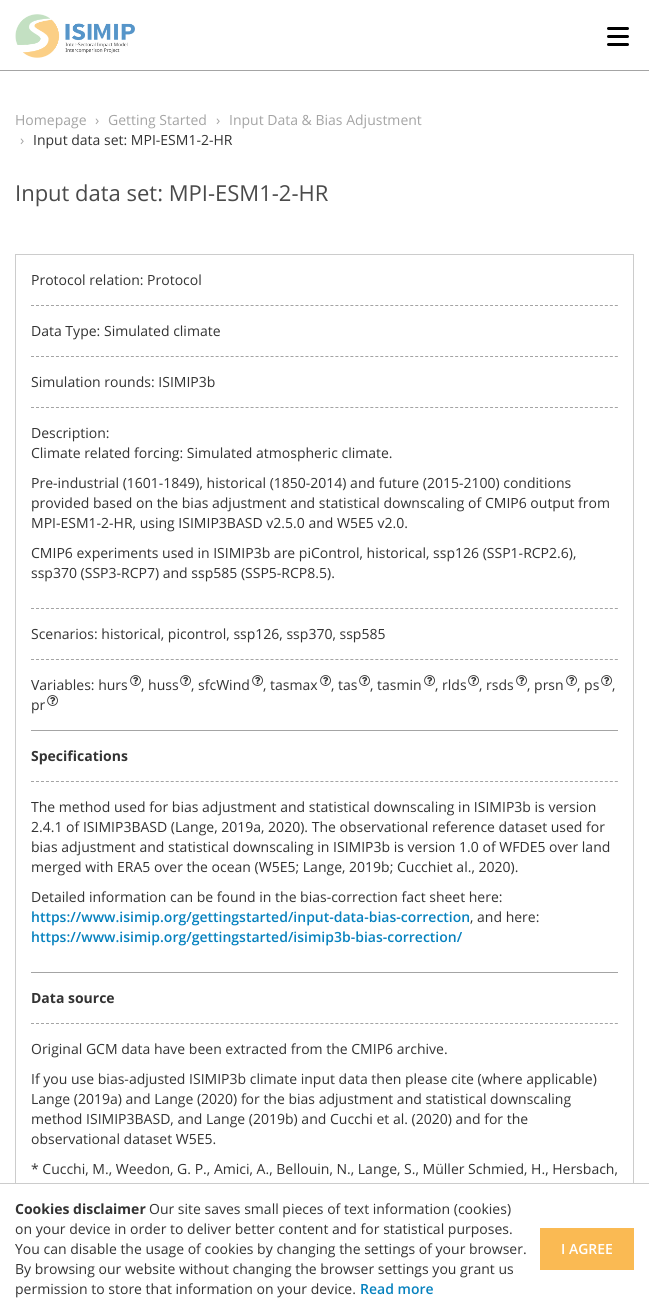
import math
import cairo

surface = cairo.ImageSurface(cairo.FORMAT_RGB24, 649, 1314)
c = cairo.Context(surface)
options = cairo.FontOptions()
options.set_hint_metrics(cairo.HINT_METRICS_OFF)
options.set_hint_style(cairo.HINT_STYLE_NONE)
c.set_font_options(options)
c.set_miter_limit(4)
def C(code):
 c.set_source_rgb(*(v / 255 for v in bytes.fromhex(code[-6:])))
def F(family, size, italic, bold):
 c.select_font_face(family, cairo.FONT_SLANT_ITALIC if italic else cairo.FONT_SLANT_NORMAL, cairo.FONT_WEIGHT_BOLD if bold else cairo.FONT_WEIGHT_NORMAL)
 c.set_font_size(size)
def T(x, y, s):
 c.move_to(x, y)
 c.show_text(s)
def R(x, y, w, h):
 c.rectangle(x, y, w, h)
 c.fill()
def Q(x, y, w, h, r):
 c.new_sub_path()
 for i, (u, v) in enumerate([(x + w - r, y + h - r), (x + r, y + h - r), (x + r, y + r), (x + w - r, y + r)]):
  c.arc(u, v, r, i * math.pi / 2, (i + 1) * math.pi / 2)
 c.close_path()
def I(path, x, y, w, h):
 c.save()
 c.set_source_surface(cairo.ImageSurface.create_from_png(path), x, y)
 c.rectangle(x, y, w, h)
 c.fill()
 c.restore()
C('ffffff')
c.paint()
C('a4a4a4')
R(0,70,649,1)
I('1.png',15,14,120,44)
C('000000')
Q(607,27,22,3,1.5)
c.fill()
Q(607,35,22,3,1.5)
c.fill()
Q(607,43,22,3,1.5)
c.fill()
F('Open Sans',14,0,0)
C('a4a4a4')
T(15,125,'Homepage')
T(95,125,'›')
T(108,125,'Getting Started')
T(216,125,'›')
T(229,125,'Input Data & Bias Adjustment')
T(20,145,'›')
C('333333')
T(33,145,'Input data set: MPI-ESM1-2-HR')
F('Open Sans',22,0,0)
C('4a4a4a')
T(15,201,'Input data set: MPI-ESM1-2-HR')
c.rectangle(15.5,254.5,618,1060)
C('cccccc')
c.set_line_width(1)
c.stroke()
F('Open Sans',14,0,0)
C('333333')
T(31,285,'Protocol relation: Protocol')
c.new_path()
c.move_to(31,305.5)
c.line_to(618,305.5)
C('a4a4a4')
c.set_dash([3,1.99])
c.stroke()
C('333333')
T(31,336,'Data Type: Simulated climate')
c.new_path()
c.move_to(31,356.5)
c.line_to(618,356.5)
C('a4a4a4')
c.stroke()
C('333333')
T(31,387,'Simulation rounds: ISIMIP3b')
c.new_path()
c.move_to(31,407.5)
c.line_to(618,407.5)
C('a4a4a4')
c.stroke()
C('333333')
T(31,438,'Description:')
T(31,458,'Climate related forcing: Simulated atmospheric climate.')
T(31,488,'Pre-industrial (1601-1849), historical (1850-2014) and future (2015-2100) conditions')
T(31,508,'provided based on the bias adjustment and statistical downscaling of CMIP6 output from')
T(31,528,'MPI-ESM1-2-HR, using ISIMIP3BASD v2.5.0 and W5E5 v2.0.')
T(31,558,'CMIP6 experiments used in ISIMIP3b are piControl, historical, ssp126 (SSP1-RCP2.6),')
T(31,578,'ssp370 (SSP3-RCP7) and ssp585 (SSP5-RCP8.5).')
c.new_path()
c.move_to(31,608.5)
c.line_to(618,608.5)
C('a4a4a4')
c.stroke()
C('333333')
T(31,639,'Scenarios: historical, picontrol, ssp126, ssp370, ssp585')
c.new_path()
c.move_to(31,659.5)
c.line_to(618,659.5)
C('a4a4a4')
c.stroke()
C('333333')
T(31,690,'Variables: hurs')
I('2.png',130,675,11,11)
T(141,690,', huss')
I('2.png',180,675,11,11)
T(191,690,', sfcWind')
I('2.png',252,675,11,11)
T(263,690,', tasmax')
I('2.png',320,675,11,11)
T(331,690,', tas')
I('2.png',359,675,11,11)
T(370,690,', tasmin')
I('2.png',424,675,11,11)
T(435,690,', rlds')
I('2.png',468,675,11,11)
T(479,690,', rsds')
I('2.png',516,675,11,11)
T(527,690,', prsn')
I('2.png',566,675,11,11)
T(577,690,', ps')
I('2.png',601,675,11,11)
T(612,690,',')
I('2.png',47,695,11,11)
T(31,710,'pr')
C('a4a4a4')
R(31,730,587,1)
F('Open Sans',14,0,1)
C('333333')
T(31,761,'Specifications')
c.new_path()
c.move_to(31,781.5)
c.line_to(618,781.5)
C('a4a4a4')
c.stroke()
F('Open Sans',14,0,0)
C('333333')
T(31,812,'The method used for bias adjustment and statistical downscaling in ISIMIP3b is version')
T(31,832,'2.4.1 of ISIMIP3BASD (Lange, 2019a, 2020). The observational reference dataset used for')
T(31,852,'bias adjustment and statistical downscaling in ISIMIP3b is version 1.0 of WFDE5 over land')
T(31,872,'merged with ERA5 over the ocean (W5E5; Lange, 2019b; Cucchiet al., 2020).')
T(31,902,'Detailed information can be found in the bias-correction fact sheet here:')
F('Open Sans SemiBold',14,0,0)
C('0681be')
T(31,922,'https://www.isimip.org/gettingstarted/input-data-bias-correction')
F('Open Sans',14,0,0)
C('333333')
T(470,922,', and here:')
F('Open Sans SemiBold',14,0,0)
C('0681be')
T(31,942,'https://www.isimip.org/gettingstarted/isimip3b-bias-correction/')
C('a4a4a4')
R(31,972,587,1)
F('Open Sans',14,0,1)
C('333333')
T(31,1003,'Data source')
c.new_path()
c.move_to(31,1023.5)
c.line_to(618,1023.5)
C('a4a4a4')
c.stroke()
F('Open Sans',14,0,0)
C('333333')
T(31,1054,'Original GCM data have been extracted from the CMIP6 archive.')
T(31,1084,'If you use bias-adjusted ISIMIP3b climate input data then please cite (where applicable)')
T(31,1104,'Lange (2019a) and Lange (2020) for the bias adjustment and statistical downscaling')
T(31,1124,'method ISIMIP3BASD, and Lange (2019b) and Cucchi et al. (2020) and for the')
T(31,1144,'observational dataset W5E5.')
T(31,1174,'* Cucchi, M., Weedon, G. P., Amici, A., Bellouin, N., Lange, S., Müller Schmied, H., Hersbach,')
C('ffffff')
R(15,1184,619,130)
C('cccccc')
R(0,1183,649,1)
F('Open Sans',14,0,1)
C('333333')
T(15,1214,'Cookies disclaimer')
F('Open Sans',14,0,0)
T(149,1214,'Our site saves small pieces of text information (cookies)')
T(15,1234,'on your device in order to deliver better content and for statistical purposes.')
T(15,1254,'You can disable the usage of cookies by changing the settings of your browser.')
C('faba53')
R(540,1228,94,42)
F('Open Sans SemiBold',14,0,0)
C('ffffff')
T(561,1254,'I AGREE')
F('Open Sans',14,0,0)
C('333333')
T(15,1274,'By browsing our website without changing the browser settings you grant us')
T(15,1294,'permission to store that information on your device.')
F('Open Sans SemiBold',14,0,0)
C('0681be')
T(360,1294,'Read more')
surface.write_to_png('o.png')
